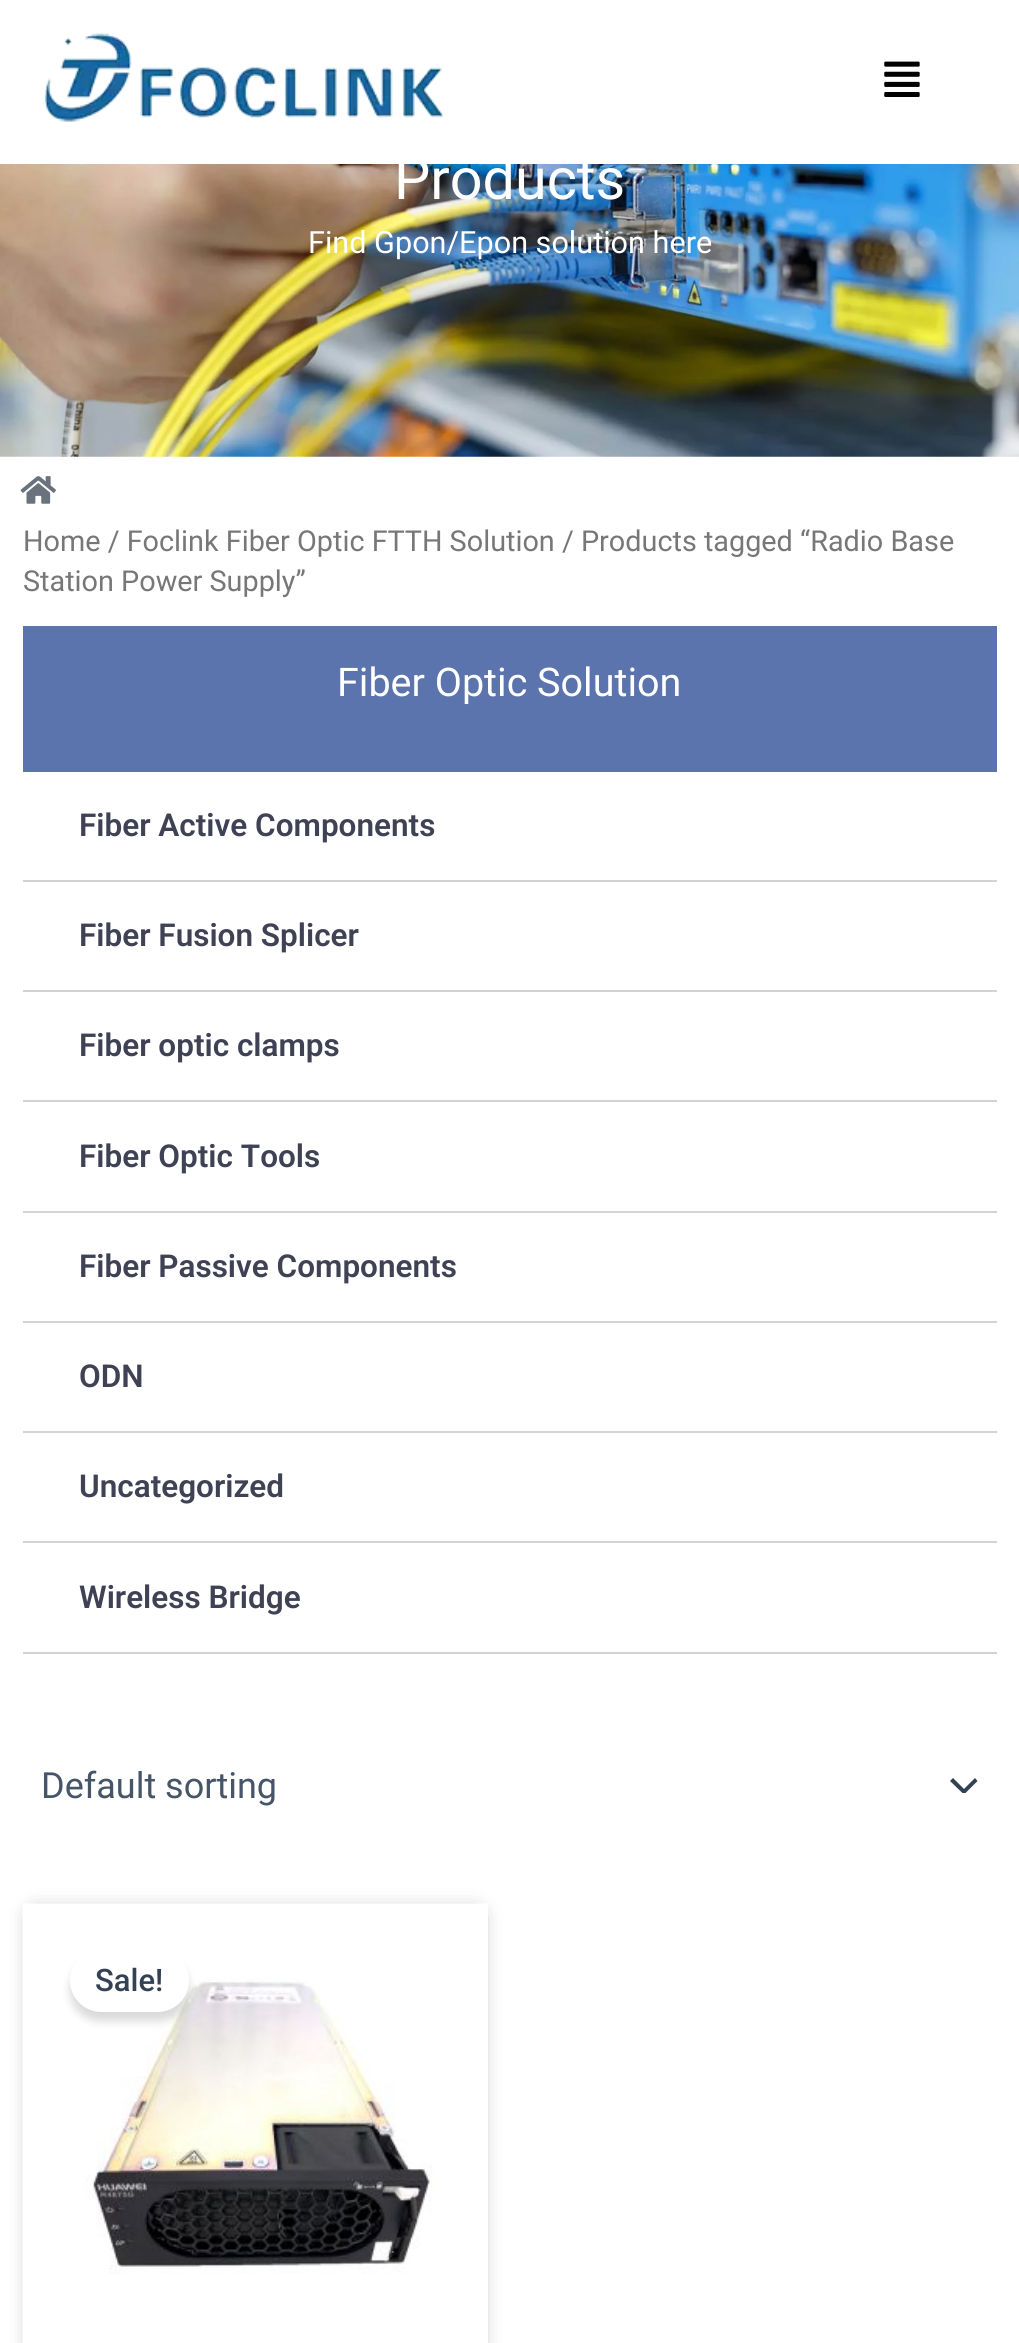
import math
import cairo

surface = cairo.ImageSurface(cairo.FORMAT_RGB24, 1019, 2343)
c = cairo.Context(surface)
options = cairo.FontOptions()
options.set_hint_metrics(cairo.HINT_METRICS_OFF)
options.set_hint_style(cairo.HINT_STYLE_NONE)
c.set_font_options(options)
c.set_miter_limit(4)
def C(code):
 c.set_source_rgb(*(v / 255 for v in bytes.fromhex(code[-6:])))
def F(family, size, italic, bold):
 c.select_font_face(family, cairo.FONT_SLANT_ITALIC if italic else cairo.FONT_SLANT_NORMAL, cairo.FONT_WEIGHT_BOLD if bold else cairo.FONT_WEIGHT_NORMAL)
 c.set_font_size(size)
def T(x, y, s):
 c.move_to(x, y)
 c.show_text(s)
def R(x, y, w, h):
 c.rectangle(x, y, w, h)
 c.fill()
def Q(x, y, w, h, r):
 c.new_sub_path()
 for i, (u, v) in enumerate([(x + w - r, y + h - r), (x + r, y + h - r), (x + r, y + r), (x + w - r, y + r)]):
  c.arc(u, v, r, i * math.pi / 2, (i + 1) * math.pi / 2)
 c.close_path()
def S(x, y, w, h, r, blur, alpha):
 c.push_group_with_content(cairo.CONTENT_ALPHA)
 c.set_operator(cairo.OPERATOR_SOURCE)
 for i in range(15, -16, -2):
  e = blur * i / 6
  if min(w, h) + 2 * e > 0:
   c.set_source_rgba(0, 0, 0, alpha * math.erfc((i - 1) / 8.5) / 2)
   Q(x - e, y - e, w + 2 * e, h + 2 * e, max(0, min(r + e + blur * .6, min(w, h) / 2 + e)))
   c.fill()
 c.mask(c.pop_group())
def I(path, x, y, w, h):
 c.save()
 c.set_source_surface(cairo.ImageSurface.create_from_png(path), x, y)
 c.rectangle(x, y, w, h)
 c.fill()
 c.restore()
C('ffffff')
c.paint()
I('1.png',45,32,399,90)
I('2.png',884,61,36,36)
I('3.png',0,164,1019,293)
F('Roboto',57.5,0,0)
C('ffffff')
T(394,199,'Products')
F('Roboto',30.6,0,0)
T(308,253,'Find Gpon/Epon solution here')
I('4.png',20,476,36,28)
F('Roboto',28.8,0,0)
C('777777')
T(23,551,'Home / Foclink Fiber Optic FTTH Solution / Products tagged “Radio Base')
T(23,591,'Station Power Supply”')
C('5c74ad')
R(23,626,974,146)
F('Roboto',39.5,0,0)
C('ffffff')
T(337,696,'Fiber Optic Solution')
C('d3d3d3')
R(23,880,974,2)
F('Roboto SemiBold',31.5,0,0)
C('3f4254')
T(79,836,'Fiber Active Components')
C('d3d3d3')
R(23,990,974,2)
C('3f4254')
T(79,946,'Fiber Fusion Splicer')
C('d3d3d3')
R(23,1100,974,2)
C('3f4254')
T(79,1056,'Fiber optic clamps')
C('d3d3d3')
R(23,1211,974,2)
C('3f4254')
T(79,1167,'Fiber Optic Tools')
C('d3d3d3')
R(23,1321,974,2)
C('3f4254')
T(79,1277,'Fiber Passive Components')
C('d3d3d3')
R(23,1431,974,2)
C('3f4254')
T(79,1387,'ODN')
C('d3d3d3')
R(23,1541,974,2)
C('3f4254')
T(79,1497,'Uncategorized')
C('d3d3d3')
R(23,1652,974,2)
C('3f4254')
T(79,1608,'Wireless Bridge')
c.save()
c.rectangle(950,1778,29,15)
c.clip()
C('334155')
c.new_path()
c.move_to(950,1781)
c.line_to(964,1794.5)
c.line_to(977.5,1781)
c.line_to(975,1778)
c.line_to(964,1789)
c.line_to(953,1778)
c.close_path()
c.fill()
c.restore()
F('Roboto',36,0,0)
C('475569')
T(41,1798,'Default sorting')
C('000000')
S(34,1915,443,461,0,11,.5)
I('5.png',22,1903,466,440)
S(70,1958,119,63,31.5,4.5,.15)
C('ffffff')
Q(70,1949,119,63,31.5)
c.fill()
F('Roboto Medium',31,0,0)
C('334155')
T(95,1991,'Sale!')
surface.write_to_png('o.png')
